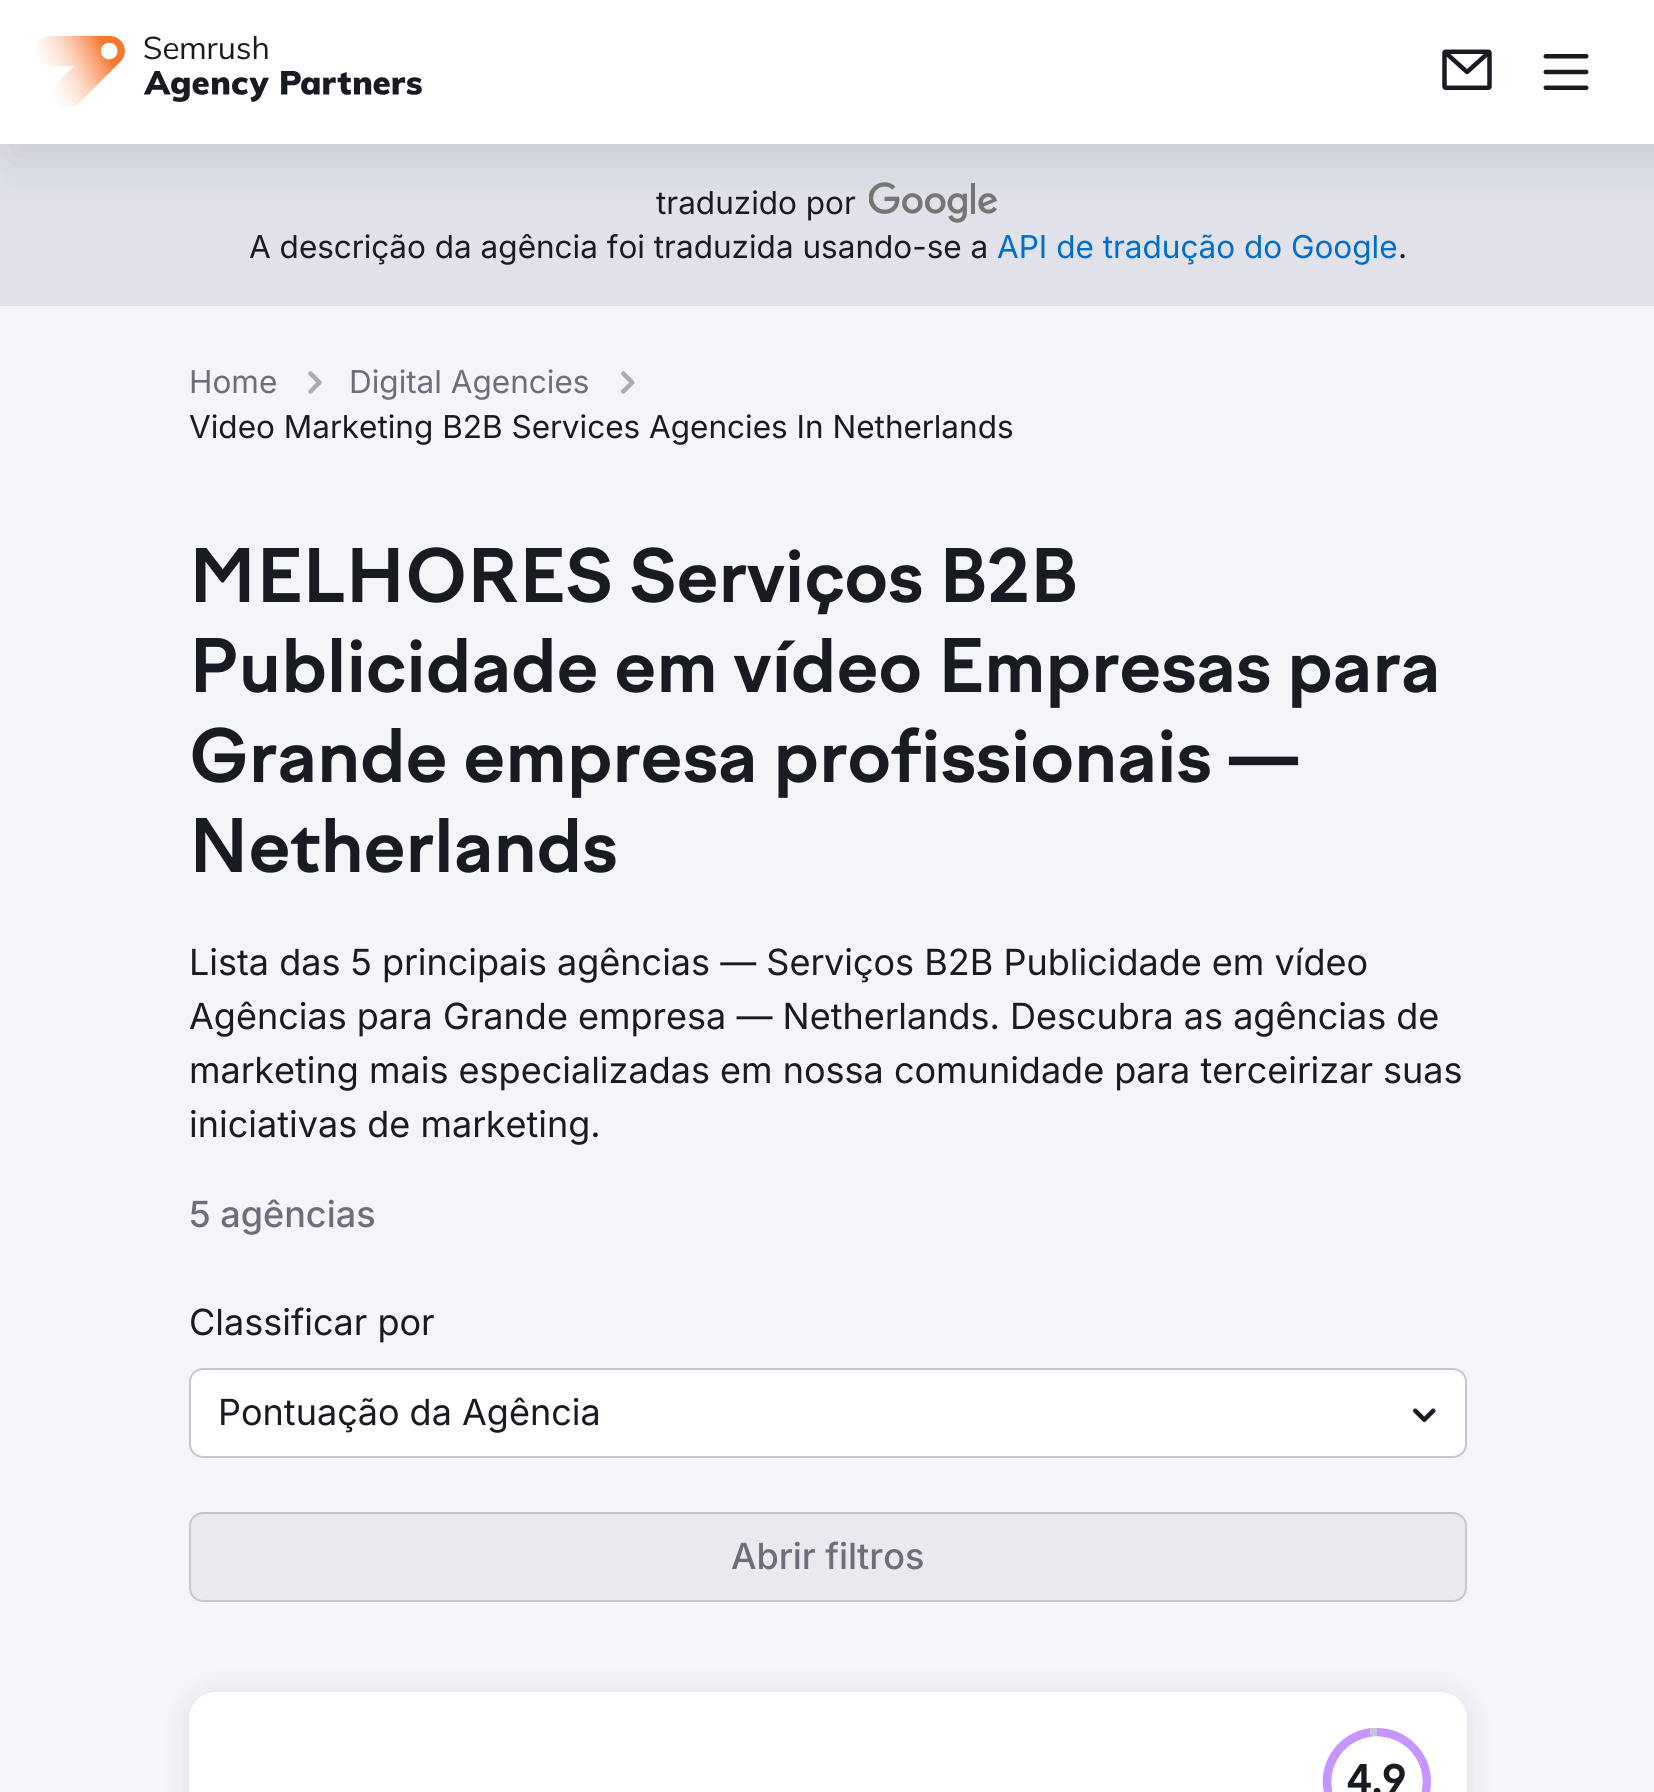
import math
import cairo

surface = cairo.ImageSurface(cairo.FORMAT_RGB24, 1654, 1792)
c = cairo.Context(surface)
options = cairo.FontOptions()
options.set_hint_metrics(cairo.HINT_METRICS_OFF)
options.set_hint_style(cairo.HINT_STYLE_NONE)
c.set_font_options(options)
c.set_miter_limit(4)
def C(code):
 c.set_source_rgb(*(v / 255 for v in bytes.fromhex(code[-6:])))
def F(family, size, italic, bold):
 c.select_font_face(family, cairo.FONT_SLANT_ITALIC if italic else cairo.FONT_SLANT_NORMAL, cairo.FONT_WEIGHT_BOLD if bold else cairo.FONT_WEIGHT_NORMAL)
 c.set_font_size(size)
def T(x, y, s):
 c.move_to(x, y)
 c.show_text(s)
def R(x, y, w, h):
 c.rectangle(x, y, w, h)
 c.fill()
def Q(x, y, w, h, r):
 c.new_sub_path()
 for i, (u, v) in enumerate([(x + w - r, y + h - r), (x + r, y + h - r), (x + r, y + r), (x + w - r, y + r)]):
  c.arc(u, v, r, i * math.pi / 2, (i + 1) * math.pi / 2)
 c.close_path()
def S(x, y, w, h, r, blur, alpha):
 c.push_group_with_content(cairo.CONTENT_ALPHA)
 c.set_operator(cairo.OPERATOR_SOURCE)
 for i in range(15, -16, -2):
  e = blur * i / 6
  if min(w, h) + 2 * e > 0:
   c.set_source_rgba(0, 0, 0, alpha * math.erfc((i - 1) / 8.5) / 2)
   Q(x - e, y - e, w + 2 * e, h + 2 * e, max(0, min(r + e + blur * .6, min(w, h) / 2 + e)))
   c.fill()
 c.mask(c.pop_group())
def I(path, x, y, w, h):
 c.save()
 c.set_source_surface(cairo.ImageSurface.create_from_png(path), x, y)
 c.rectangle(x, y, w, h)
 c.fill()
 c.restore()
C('ffffff')
c.paint()
C('e0e1e9')
R(0,144,1654,162)
I('4.png',869,182,129,41)
c.save()
c.rectangle(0,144,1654,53)
c.clip()
C('898d9a')
S(11,11,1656,144,0,28,.3)
c.restore()
I('1.png',36,36,386,72)
I('2.png',1442,49,50,41)
I('3.png',1543,54,46,36)
F('Inter',31.5,0,0)
C('191b23')
T(656,214,'traduzido por')
T(249,258,'A descrição da agência foi traduzida usando-se a')
C('006dca')
T(997,258,'API de tradução do Google')
C('191b23')
T(1398,258,'.')
C('f4f5f9')
R(0,306,1654,1486)
C('6c6e79')
T(189,393,'Home')
I('5.png',308,371,14,23)
T(349,393,'Digital Agencies')
I('6.png',621,371,14,23)
C('191b23')
T(189,438,'Video Marketing B2B Services Agencies In Netherlands')
F('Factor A',72,0,1)
T(189,602,'MELHORES Serviços B2B')
T(189,692,'Publicidade em vídeo Empresas para')
T(189,782,'Grande empresa profissionais —')
T(189,872,'Netherlands')
F('Inter',36,0,0)
T(189,975,'Lista das 5 principais agências — Serviços B2B Publicidade em vídeo')
T(189,1029,'Agências para Grande empresa — Netherlands. Descubra as agências de')
T(189,1083,'marketing mais especializadas em nossa comunidade para terceirizar suas')
T(189,1137,'iniciativas de marketing.')
F('Inter Medium',36,0,0)
C('6c6e79')
T(189,1227,'5 agências')
F('Inter',36,0,0)
C('191b23')
T(189,1335,'Classificar por')
C('ffffff')
Q(190,1369,1276,88,13)
c.fill_preserve()
C('c4c7cf')
c.stroke()
C('191b23')
T(218,1425,'Pontuação da Agência')
I('7.png',1413,1408,23,14)
C('e9eaef')
Q(190,1513,1276,88,13)
c.fill_preserve()
C('c4c7cf')
c.stroke()
F('Inter Medium',36,0,0)
C('6c6e79')
T(731,1569,'Abrir filtros')
C('191b23')
S(189,1694,1278,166,27,13.5,.1)
C('ffffff')
Q(189,1692,1278,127,27)
c.fill()
C('c695ff')
c.new_path()
c.move_to(1377,1782)
c.line_to(1377,1728)
c.curve_to(1406,1728,1430,1751,1431,1780)
c.curve_to(1432,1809,1409,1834,1380,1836)
c.curve_to(1351,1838,1326,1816,1323,1787)
c.curve_to(1320,1758,1341,1732,1370,1728)
c.close_path()
c.fill()
C('c4c7cf')
c.new_path()
c.move_to(1377,1782)
c.line_to(1370,1728)
c.line_to(1377,1728)
c.close_path()
c.fill()
gradient = cairo.RadialGradient(1377,1782,0,1377,1782,54)
gradient.add_color_stop_rgba(.84,1,1,1,1)
gradient.add_color_stop_rgba(.85,1,1,1,0)
gradient.add_color_stop_rgba(1,0,0,0,0)
c.set_source(gradient)
R(1331,1736,92,56)
F('Factor A',40,0,1)
C('191b23')
T(1347,1794,'4.9')
surface.write_to_png('o.png')
